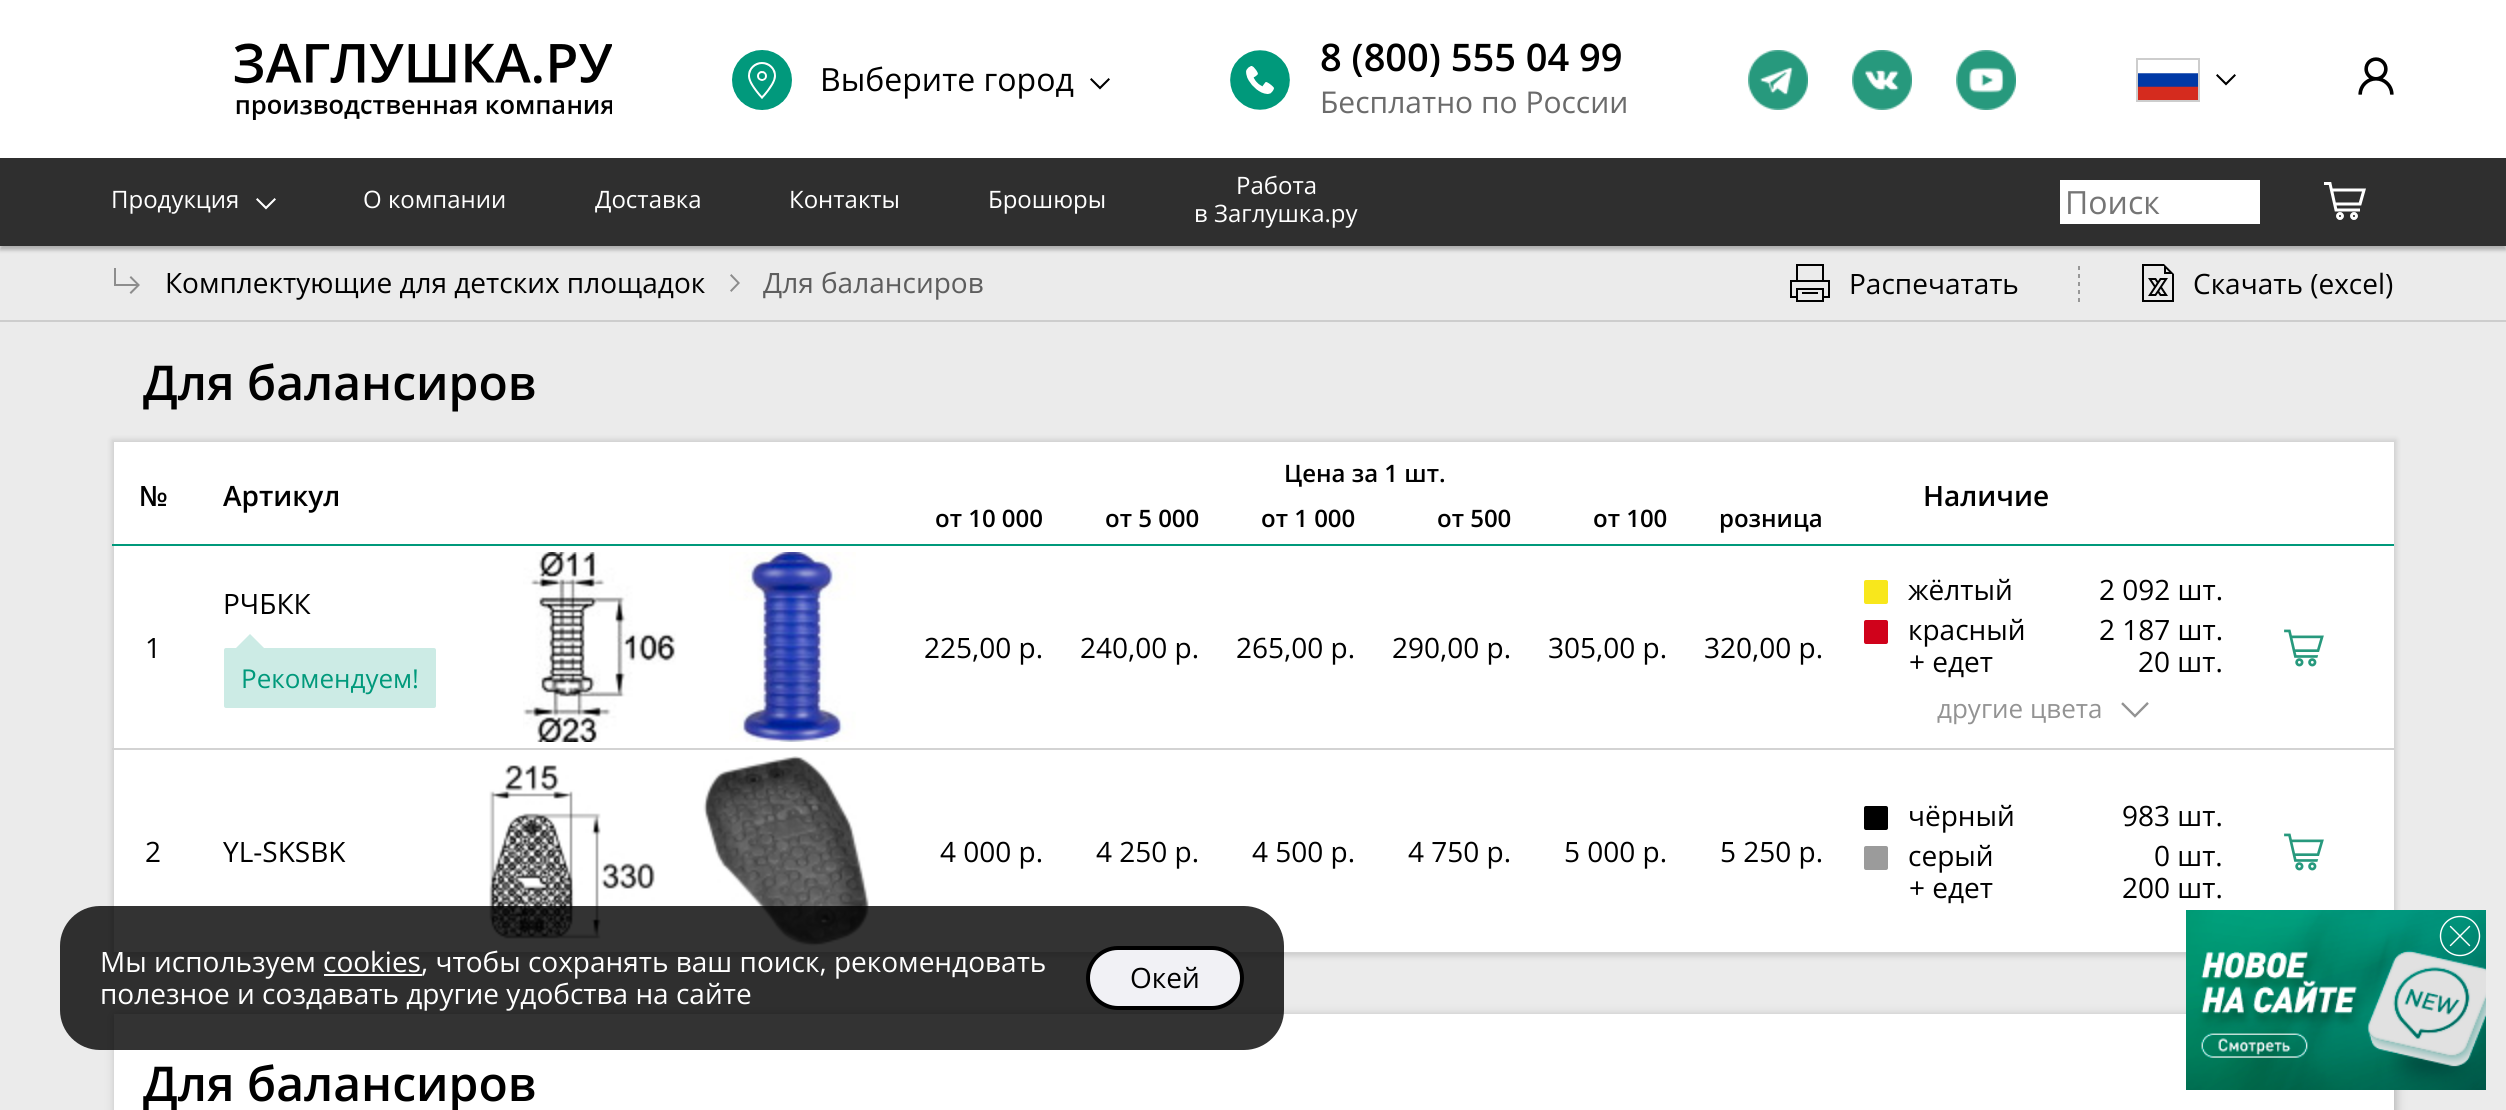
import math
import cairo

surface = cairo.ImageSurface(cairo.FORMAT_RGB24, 2506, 1110)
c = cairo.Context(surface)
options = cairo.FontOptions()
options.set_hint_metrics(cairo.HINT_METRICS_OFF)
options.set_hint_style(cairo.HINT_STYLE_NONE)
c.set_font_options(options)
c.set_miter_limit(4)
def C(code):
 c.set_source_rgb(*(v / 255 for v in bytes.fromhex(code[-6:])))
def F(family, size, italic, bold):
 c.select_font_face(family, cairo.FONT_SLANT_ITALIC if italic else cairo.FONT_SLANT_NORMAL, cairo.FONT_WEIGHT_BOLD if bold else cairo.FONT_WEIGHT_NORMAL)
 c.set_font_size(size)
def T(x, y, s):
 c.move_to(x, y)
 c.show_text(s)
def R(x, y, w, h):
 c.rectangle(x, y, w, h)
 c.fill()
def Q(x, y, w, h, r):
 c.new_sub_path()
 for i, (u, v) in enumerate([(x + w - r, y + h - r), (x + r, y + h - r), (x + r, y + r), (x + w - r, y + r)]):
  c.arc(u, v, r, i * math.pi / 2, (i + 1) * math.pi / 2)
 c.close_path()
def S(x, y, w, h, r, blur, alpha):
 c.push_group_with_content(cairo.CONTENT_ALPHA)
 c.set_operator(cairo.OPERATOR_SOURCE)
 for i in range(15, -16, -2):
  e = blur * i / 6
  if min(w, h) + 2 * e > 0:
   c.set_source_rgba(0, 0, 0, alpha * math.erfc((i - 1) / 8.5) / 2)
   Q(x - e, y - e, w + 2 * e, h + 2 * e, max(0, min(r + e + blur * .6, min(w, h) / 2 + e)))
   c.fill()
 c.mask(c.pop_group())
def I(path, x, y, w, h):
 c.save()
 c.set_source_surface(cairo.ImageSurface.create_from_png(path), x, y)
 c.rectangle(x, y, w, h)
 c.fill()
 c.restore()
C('ebebeb')
c.paint()
C('ffffff')
R(0,0,2506,158)
I('1.png',234,43,378,77)
I('2.png',732,50,60,60)
F('Open Sans',32,0,0)
C('000000')
T(820,91,'Выберите город')
I('3.png',1090,78,20,12)
I('4.png',1230,50,60,60)
F('Open Sans SemiBold',38,0,0)
T(1320,71,'8 (800) 555 04 99')
F('Open Sans',30,0,0)
C('6b6b6b')
T(1320,113,'Бесплатно по России')
I('5.png',1748,50,60,60)
I('6.png',1852,50,60,60)
I('7.png',1956,50,60,60)
c.rectangle(2137,59,62,42)
C('cdcdcd')
c.stroke()
I('8.png',2138,73,60,27)
I('3.png',2216,74,20,12)
I('9.png',2358,57,36,38)
C('000000')
S(0,162,2506,88,0,2,.26)
C('2f2f2f')
R(0,158,2506,88)
F('Open Sans',24,0,0)
C('ffffff')
T(111,208,'Продукция')
I('10.png',256,198,20,12)
T(363,208,'О компании')
T(595,208,'Доставка')
T(789,208,'Контакты')
T(988,208,'Брошюры')
T(1236,194,'Работа')
T(1194,222,'в Заглушка.ру')
R(2060,180,200,44)
F('Open Sans',32,0,0)
C('757575')
T(2065,214,'Поиск')
I('11.png',2324,182,42,38)
C('cdcdcd')
R(0,320,2506,2)
I('12.png',114,268,26,26)
F('Open Sans',28,0,0)
C('000000')
T(165,293,'Комплектующие для детских площадок')
I('13.png',730,274,10,18)
C('5d5d5d')
T(763,293,'Для балансиров')
I('14.png',1790,264,40,38)
C('000000')
T(1849,294,'Распечатать')
I('15.png',2078,266,2,36)
I('16.png',2142,264,32,38)
T(2193,294,'Скачать (excel)')
F('Open Sans SemiBold',48,0,0)
T(143,400,'Для балансиров')
C('000000')
S(112,440,2284,516,0,3,.14)
C('ffffff')
R(114,442,2280,510)
F('Open Sans SemiBold',24,0,0)
C('000000')
T(1284,482,'Цена за 1 шт.')
F('Open Sans SemiBold',28,0,0)
T(139,506,'№')
T(223,506,'Артикул')
T(1923,506,'Наличие')
F('Open Sans SemiBold',24,0,0)
T(935,527,'от 10 000')
T(1105,527,'от 5 000')
T(1261,527,'от 1 000')
T(1437,527,'от 500')
T(1593,527,'от 100')
C('00997b')
R(112,544,2282,2)
C('000000')
T(1719,527,'розница')
F('Open Sans',28,0,0)
T(145,658,'1')
T(223,614,'РЧБКК')
C('ccebe5')
Q(224,648,212,60,2)
c.fill()
c.new_path()
c.move_to(264,648)
c.line_to(236,648)
c.line_to(250,634)
c.close_path()
c.fill()
F('Open Sans',26,0,0)
C('00997b')
T(241,688,'Рекомендуем!')
I('17.png',523,552,153,190)
I('18.png',729,552,127,190)
F('Open Sans',28,0,0)
C('000000')
T(924,658,'225,00 р.')
T(1080,658,'240,00 р.')
T(1236,658,'265,00 р.')
T(1392,658,'290,00 р.')
T(1548,658,'305,00 р.')
T(1704,658,'320,00 р.')
C('f8e71c')
Q(1864,580,24,24,2)
c.fill()
C('000000')
T(1908,600,'жёлтый')
T(2099,600,'2 092 шт.')
C('d0021b')
Q(1864,620,24,24,2)
c.fill()
C('000000')
T(1908,640,'красный')
T(2099,640,'2 187 шт.')
T(1909,672,'+ едет')
T(2138,672,'20 шт.')
F('Open Sans',26,0,0)
C('939393')
T(1937,718,'другие цвета')
I('19.png',2121,702,28,16)
I('20.png',2284,629,40,38)
C('d3d3d3')
R(112,748,2282,2)
I('20.png',2284,833,40,38)
R(192,952,908,1)
R(112,952,82,2)
F('Open Sans',28,0,0)
C('000000')
T(145,862,'2')
T(223,862,'YL-SKSBK')
I('21.png',489,765,166,174)
I('22.png',703,756,166,190)
T(940,862,'4 000 р.')
T(1096,862,'4 250 р.')
T(1252,862,'4 500 р.')
T(1408,862,'4 750 р.')
T(1564,862,'5 000 р.')
T(1720,862,'5 250 р.')
C('d3d3d3')
R(1230,952,956,1)
C('000000')
Q(1864,806,24,24,2)
c.fill()
T(1908,826,'чёрный')
T(2122,826,'983 шт.')
C('9b9b9b')
Q(1864,846,24,24,2)
c.fill()
C('000000')
T(1908,866,'серый')
T(2154,866,'0 шт.')
T(1909,898,'+ едет')
T(2122,898,'200 шт.')
C('b2b2b2')
S(116,1016,2280,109,0,5,1)
C('ffffff')
R(114,1014,2280,96)
F('Open Sans SemiBold',48,0,0)
C('000000')
T(143,1101,'Для балансиров')
c.set_source_rgba(0,0,0,0.8)
Q(60,906,1224,144,40)
c.fill()
F('Open Sans',28,0,0)
C('ffffff')
T(100,972,'Мы используем cookies, чтобы сохранять ваш поиск, рекомендовать')
R(324,974,98,2)
T(100,1004,'полезное и создавать другие удобства на сайте')
C('f1f1f5')
Q(1088,948,154,60,30)
c.fill_preserve()
C('000000')
c.set_line_width(4)
c.stroke()
T(1130,988,'Окей')
I('23.png',2186,910,300,180)
c.arc(2460,936,19.5,0,2 * math.pi)
C('ffffff')
c.set_line_width(1.4)
c.stroke()
c.new_path()
c.move_to(2450.5,926.5)
c.line_to(2469.5,945.5)
c.move_to(2469.5,926.5)
c.line_to(2450.5,945.5)
c.set_line_cap(cairo.LINE_CAP_ROUND)
c.stroke()
surface.write_to_png('o.png')
